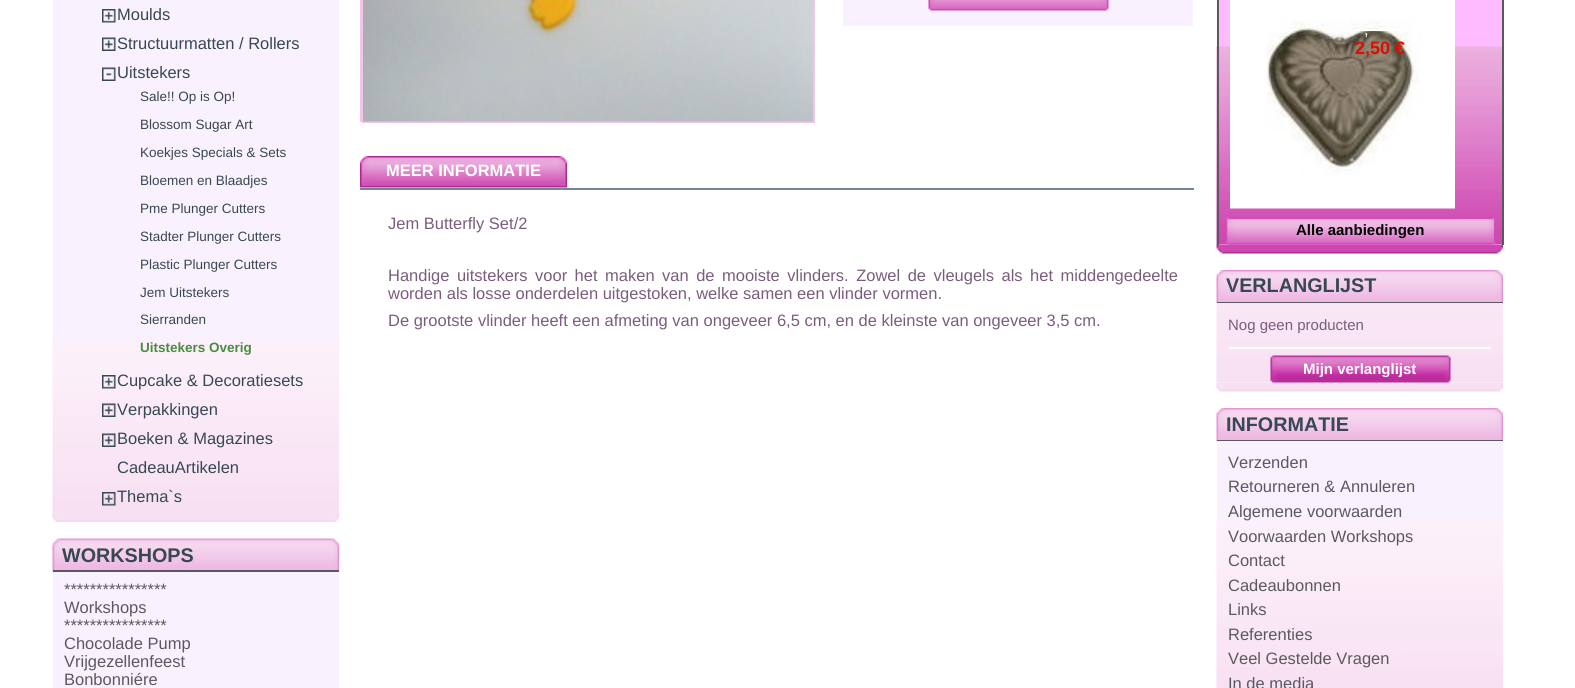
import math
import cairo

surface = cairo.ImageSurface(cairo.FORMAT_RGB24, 1575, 688)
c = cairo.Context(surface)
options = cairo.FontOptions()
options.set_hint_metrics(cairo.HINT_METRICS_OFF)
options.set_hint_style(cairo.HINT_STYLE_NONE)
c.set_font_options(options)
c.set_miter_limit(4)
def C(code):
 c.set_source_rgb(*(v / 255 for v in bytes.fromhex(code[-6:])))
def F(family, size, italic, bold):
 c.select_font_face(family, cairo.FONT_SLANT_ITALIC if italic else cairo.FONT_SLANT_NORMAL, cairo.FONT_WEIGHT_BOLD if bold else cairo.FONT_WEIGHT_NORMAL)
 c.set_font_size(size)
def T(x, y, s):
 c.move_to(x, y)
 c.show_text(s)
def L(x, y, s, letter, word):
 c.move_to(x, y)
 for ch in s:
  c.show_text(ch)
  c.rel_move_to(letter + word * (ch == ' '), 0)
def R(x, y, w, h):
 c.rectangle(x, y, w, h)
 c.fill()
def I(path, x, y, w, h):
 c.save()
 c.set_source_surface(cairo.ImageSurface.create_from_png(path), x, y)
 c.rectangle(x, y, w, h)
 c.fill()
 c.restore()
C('ffffff')
c.paint()
I('1.png',52,513,287,9)
C('f9f1fd')
R(53,0,286,339)
I('2.png',52,339,287,174)
I('3.png',102,9,14,14)
F('Liberation Sans',16.5,0,0)
C('374853')
T(117,20,'Moulds')
I('4.png',102,37,14,14)
T(117,49,'Structuurmatten / Rollers')
I('5.png',102,67,14,14)
T(117,78,'Uitstekers')
F('Liberation Sans',13.5,0,0)
T(140,101,'Sale!! Op is Op!')
T(140,129,'Blossom Sugar Art')
T(140,157,'Koekjes Specials & Sets')
T(140,185,'Bloemen en Blaadjes')
T(140,213,'Pme Plunger Cutters')
T(140,241,'Stadter Plunger Cutters')
T(140,269,'Plastic Plunger Cutters')
T(140,297,'Jem Uitstekers')
T(140,324,'Sierranden')
F('Liberation Sans',13.5,0,1)
C('488c40')
T(140,352,'Uitstekers Overig')
I('6.png',102,375,14,14)
F('Liberation Sans',16.5,0,0)
C('374853')
T(117,386,'Cupcake & Decoratiesets')
I('7.png',102,403,14,14)
T(117,415,'Verpakkingen')
I('8.png',102,433,14,14)
T(117,444,'Boeken & Magazines')
T(117,473,'CadeauArtikelen')
I('9.png',102,492,14,14)
T(117,502,'Thema`s')
I('10.png',52,538,287,34)
C('595a5e')
R(53,570,286,2)
F('Liberation Sans',19.75,0,1)
C('374853')
T(62,562,'WORKSHOPS')
C('f9f1fd')
R(53,572,286,116)
F('Liberation Sans',16.5,0,0)
C('595a5e')
T(64,595,'****************')
T(64,613,'Workshops')
T(64,631,'****************')
T(64,649,'Chocolade Pump')
T(64,667,'Vrijgezellenfeest')
T(64,685,'Bonbonniére')
c.rectangle(361,-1,451,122)
C('f1c5e8')
c.stroke()
c.rectangle(363,-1,451,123)
c.stroke()
I('11.png',363,0,450,122)
C('f9f1fd')
R(843,0,350,26)
I('12.png',928,0,181,11)
C('76839b')
R(360,188,834,2)
I('13.png',360,156,207,32)
F('Liberation Sans',16.5,0,1)
C('ffffff')
T(386,176,'MEER INFORMATIE')
F('Liberation Sans',16.5,0,0)
C('7a5d7d')
T(388,229,'Jem Butterfly Set/2')
L(388,281,'Handige uitstekers voor het maken van de mooiste vlinders. Zowel de vleugels als het middengedeelte',0,2.9)
T(388,299,'worden als losse onderdelen uitgestoken, welke samen een vlinder vormen.')
T(388,326,'De grootste vlinder heeft een afmeting van ongeveer 6,5 cm, en de kleinste van ongeveer 3,5 cm.')
I('14.png',1216,244,287,10)
C('febbff')
R(1219,0,283,245)
I('15.png',1216,46,286,199)
C('595a5e')
R(1502,0,2,245)
R(1217,0,2,245)
I('16.png',1230,0,225,209)
C('ffffff')
T(1364,35,',')
R(1355,29,46,2)
F('Liberation Sans',18,0,1)
C('da0f00')
T(1355,54,'2,50 €')
I('17.png',1225,217,271,28)
F('Liberation Sans',15,0,1)
C('000000')
T(1296,235,'Alle aanbiedingen')
I('18.png',1216,382,287,10)
I('19.png',1216,270,287,33)
C('595a5e')
R(1217,302,286,1)
F('Liberation Sans',19.75,0,1)
C('374853')
T(1226,292,'VERLANGLIJST')
C('f9f1fd')
R(1217,382,286,1)
I('20.png',1216,303,287,80)
C('ffffff')
R(1229,347,262,2)
F('Liberation Sans',15,0,0)
C('7a5d7d')
T(1228,330,'Nog geen producten')
I('21.png',1270,355,181,28)
F('Liberation Sans',15,0,1)
C('ffffff')
T(1303,374,'Mijn verlanglijst')
I('19.png',1216,408,287,33)
C('595a5e')
R(1217,440,286,1)
F('Liberation Sans',19.75,0,1)
C('374853')
T(1226,431,'INFORMATIE')
C('f9f1fd')
R(1217,441,286,81)
I('22.png',1216,522,287,166)
F('Liberation Sans',16.5,0,0)
C('595a5e')
T(1228,468,'Verzenden')
T(1228,492,'Retourneren & Annuleren')
T(1228,517,'Algemene voorwaarden')
T(1228,542,'Voorwaarden Workshops')
T(1228,566,'Contact')
T(1228,591,'Cadeaubonnen')
T(1228,615,'Links')
T(1228,640,'Referenties')
T(1228,664,'Veel Gestelde Vragen')
T(1228,689,'In de media')
surface.write_to_png('o.png')
